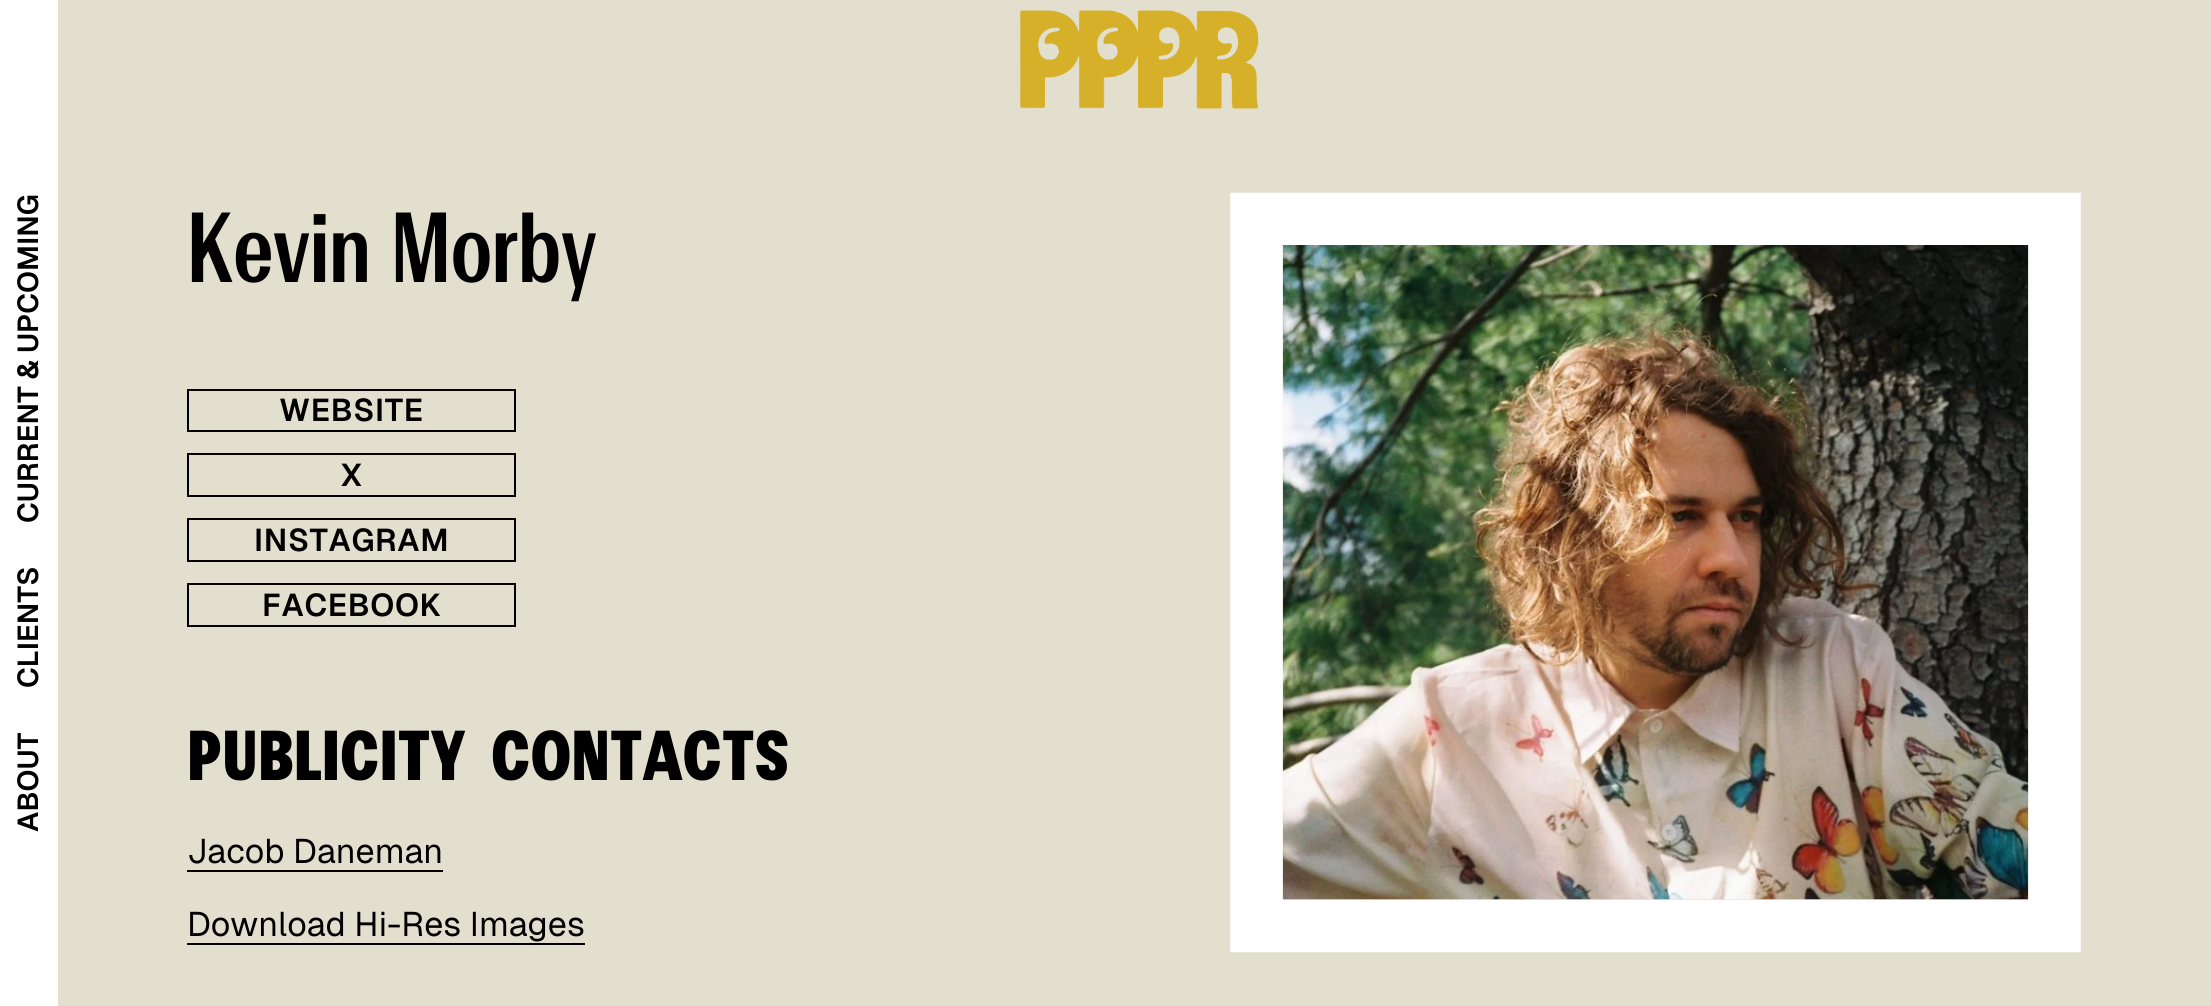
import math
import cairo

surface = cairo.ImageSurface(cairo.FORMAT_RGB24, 2211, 1006)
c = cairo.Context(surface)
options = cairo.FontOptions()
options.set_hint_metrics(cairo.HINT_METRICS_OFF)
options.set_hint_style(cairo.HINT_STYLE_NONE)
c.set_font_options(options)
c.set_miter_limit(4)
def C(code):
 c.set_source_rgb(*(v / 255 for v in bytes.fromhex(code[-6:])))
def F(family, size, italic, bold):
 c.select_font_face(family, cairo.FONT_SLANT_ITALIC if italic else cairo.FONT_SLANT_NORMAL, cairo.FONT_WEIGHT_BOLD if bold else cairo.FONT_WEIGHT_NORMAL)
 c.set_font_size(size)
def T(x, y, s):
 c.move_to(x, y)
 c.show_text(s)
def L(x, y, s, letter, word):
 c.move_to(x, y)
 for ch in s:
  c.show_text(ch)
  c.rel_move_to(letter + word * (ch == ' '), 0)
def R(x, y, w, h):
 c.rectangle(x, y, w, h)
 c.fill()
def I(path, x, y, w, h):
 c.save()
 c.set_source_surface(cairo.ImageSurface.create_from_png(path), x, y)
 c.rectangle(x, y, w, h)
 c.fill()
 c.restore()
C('e3dfcf')
c.paint()
I('1.png',1020,10,239,99)
C('ffffff')
R(0,0,58,1006)
F('Geist SemiBold',28.8,0,0)
C('000000')
c.save()
c.translate(38,523)
c.rotate(-90 * math.pi / 180)
T(0,0,'CURRENT & UPCOMING')
c.restore()
c.save()
c.translate(38,688)
c.rotate(-90 * math.pi / 180)
T(0,0,'CLIENTS')
c.restore()
c.save()
c.translate(38,832)
c.rotate(-90 * math.pi / 180)
T(0,0,'ABOUT')
c.restore()
F('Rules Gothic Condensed',88.75,0,1)
L(187,282,'Kevin Morby',0,9)
c.new_path()
c.move_to(1256.5,219)
c.line_to(2054.5,219)
c.line_to(2054.5,926)
c.line_to(1256.5,926)
c.close_path()
C('ffffff')
c.set_line_width(52.5)
c.stroke()
I('2.png',1282,245,747,655)
c.rectangle(188,390,327,41)
C('000000')
c.set_line_width(2)
c.stroke()
F('Geist SemiBold',31.5,0,0)
L(279,421,'WEBSITE',.6,0)
c.rectangle(188,454,327,42)
c.stroke()
L(341,486,'X',.6,0)
c.rectangle(188,519,327,42)
c.stroke()
L(254,551,'INSTAGRAM',.6,0)
c.rectangle(188,584,327,42)
c.stroke()
L(262,616,'FACEBOOK',.6,0)
F('Rules Gothic Condensed Black',63,0,0)
L(187,780,'PUBLICITY CONTACTS',0,18)
F('Geist',34.1,0,0)
T(187,863,'Jacob Daneman')
R(187,870,256,2)
T(187,936,'Download Hi-Res Images')
R(187,943,398,2)
surface.write_to_png('o.png')
